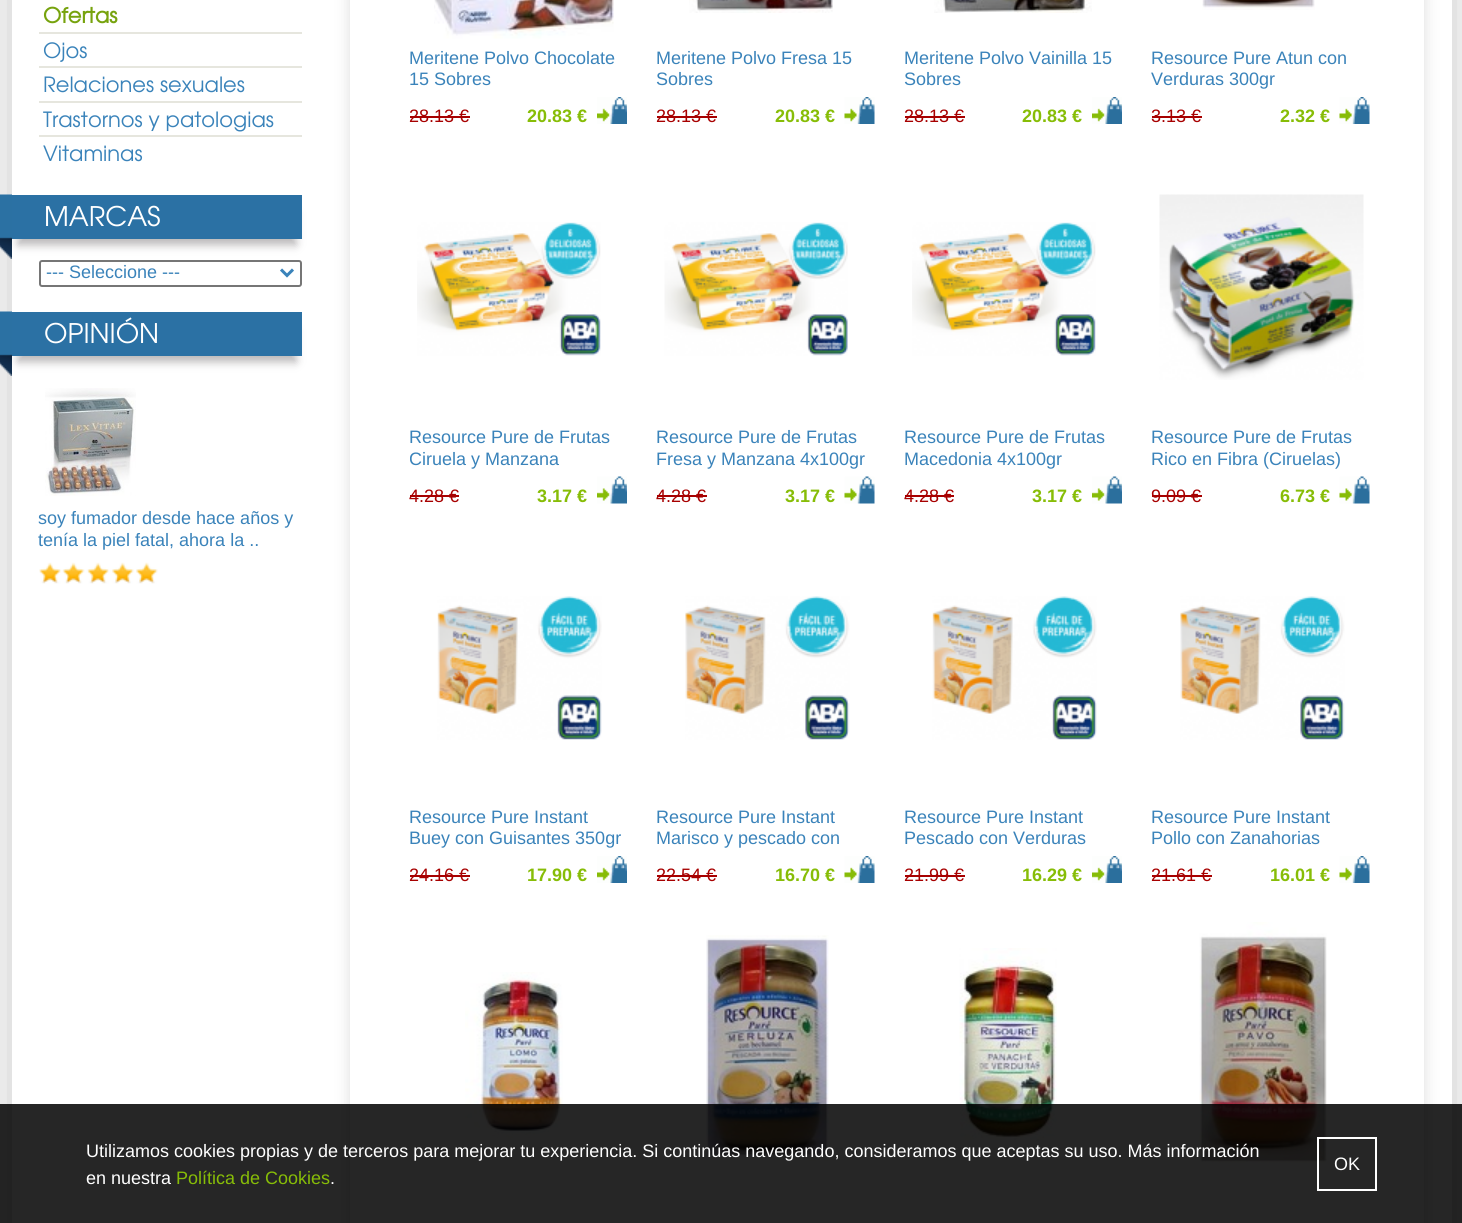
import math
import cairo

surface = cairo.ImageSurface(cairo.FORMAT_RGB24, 1462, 1223)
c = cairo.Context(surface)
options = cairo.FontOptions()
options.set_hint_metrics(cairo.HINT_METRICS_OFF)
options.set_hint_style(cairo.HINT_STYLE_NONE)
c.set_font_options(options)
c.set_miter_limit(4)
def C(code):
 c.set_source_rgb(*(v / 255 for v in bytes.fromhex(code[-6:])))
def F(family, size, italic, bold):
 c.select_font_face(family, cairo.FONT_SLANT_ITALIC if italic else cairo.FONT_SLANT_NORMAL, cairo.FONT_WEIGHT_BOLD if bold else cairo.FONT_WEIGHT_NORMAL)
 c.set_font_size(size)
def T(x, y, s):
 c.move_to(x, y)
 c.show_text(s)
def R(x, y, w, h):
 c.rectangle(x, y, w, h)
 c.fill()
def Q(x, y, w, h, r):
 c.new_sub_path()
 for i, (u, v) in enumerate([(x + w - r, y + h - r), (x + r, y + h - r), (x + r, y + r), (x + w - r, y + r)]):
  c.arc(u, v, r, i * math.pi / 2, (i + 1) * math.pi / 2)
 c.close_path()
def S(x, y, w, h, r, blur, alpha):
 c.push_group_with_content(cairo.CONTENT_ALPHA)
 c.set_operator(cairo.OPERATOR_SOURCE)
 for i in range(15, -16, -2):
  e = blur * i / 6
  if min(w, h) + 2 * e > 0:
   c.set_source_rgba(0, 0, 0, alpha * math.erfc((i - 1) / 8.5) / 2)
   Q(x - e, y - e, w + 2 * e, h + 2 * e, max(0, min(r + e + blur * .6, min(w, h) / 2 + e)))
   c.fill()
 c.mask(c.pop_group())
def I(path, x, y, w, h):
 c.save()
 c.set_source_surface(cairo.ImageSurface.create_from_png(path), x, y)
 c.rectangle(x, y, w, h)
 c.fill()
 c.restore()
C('ffffff')
c.paint()
c.save()
c.set_fill_rule(cairo.FILL_RULE_EVEN_ODD)
c.new_path()
c.move_to(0,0)
c.line_to(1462,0)
c.line_to(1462,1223)
c.line_to(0,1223)
c.close_path()
c.move_to(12,-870)
c.line_to(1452,-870)
c.line_to(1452,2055)
c.line_to(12,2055)
c.close_path()
c.clip()
C('c7c7c7')
S(12,-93,1440,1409,0,31,1)
c.restore()
F('TeX Gyre Adventor',21,0,1)
C('77a30e')
T(43,23,'Ofertas')
C('e6e6de')
R(39,32,263,2)
F('TeX Gyre Adventor',21,0,0)
C('3a83ba')
T(43,58,'Ojos')
C('e6e6de')
R(39,66,263,2)
C('3a83ba')
T(43,92,'Relaciones sexuales')
C('e6e6de')
R(39,101,263,2)
C('3a83ba')
T(43,127,'Trastornos y patologias')
C('e6e6de')
R(39,135,263,2)
C('3a83ba')
T(43,161,'Vitaminas')
C('bab8b9')
S(18,213,278,32,0,4.5,1)
C('2b71a4')
R(12,195,290,44)
I('1.png',0,194,12,65)
F('TeX Gyre Adventor',27,0,0)
C('ffffff')
T(44,226,'MARCAS')
Q(40,261,261,25,2)
C('767676')
c.stroke()
c.new_path()
c.move_to(281,269.5)
c.line_to(287,275.5)
c.line_to(293,269.5)
C('3a83ba')
c.set_line_width(3)
c.stroke()
F('Liberation Sans',18,0,0)
T(46,278,'--- Seleccione ---')
C('bab8b9')
S(18,330,278,32,0,4.5,1)
C('2b71a4')
R(12,312,290,44)
I('1.png',0,311,12,65)
F('TeX Gyre Adventor',27,0,0)
C('ffffff')
T(44,343,'OPINIÓN')
I('2.png',45,388,91,108)
F('Liberation Sans',18,0,0)
C('3a83ba')
T(38,524,'soy fumador desde hace años y')
T(38,546,'tenía la piel fatal, ahora la ..')
I('3.png',39,562,119,22)
c.save()
c.set_fill_rule(cairo.FILL_RULE_EVEN_ODD)
c.new_path()
c.move_to(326,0)
c.line_to(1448,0)
c.line_to(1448,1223)
c.line_to(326,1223)
c.close_path()
c.move_to(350,-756)
c.line_to(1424,-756)
c.line_to(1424,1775)
c.line_to(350,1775)
c.close_path()
c.clip()
C('dddddd')
S(350,-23,1074,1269,0,7.5,1)
c.restore()
I('4.png',434,0,180,39)
T(409,64,'Meritene Polvo Chocolate')
T(409,85,'15 Sobres')
C('a70000')
T(409,122,'28.13 €')
R(410,116,60,2)
F('Liberation Sans',18,0,1)
C('87bd07')
T(527,122,'20.83 €')
I('5.png',597,97,30,27)
I('6.png',689,0,144,13)
F('Liberation Sans',18,0,0)
C('3a83ba')
T(656,64,'Meritene Polvo Fresa 15')
T(656,85,'Sobres')
C('a70000')
T(656,122,'28.13 €')
R(657,116,60,2)
F('Liberation Sans',18,0,1)
C('87bd07')
T(775,122,'20.83 €')
I('7.png',844,97,31,27)
I('8.png',934,0,158,13)
F('Liberation Sans',18,0,0)
C('3a83ba')
T(904,64,'Meritene Polvo Vainilla 15')
T(904,85,'Sobres')
C('a70000')
T(904,122,'28.13 €')
R(905,116,60,2)
F('Liberation Sans',18,0,1)
C('87bd07')
T(1022,122,'20.83 €')
I('5.png',1092,97,30,27)
I('9.png',1202,0,113,10)
F('Liberation Sans',18,0,0)
C('3a83ba')
T(1151,64,'Resource Pure Atun con')
T(1151,85,'Verduras 300gr')
C('a70000')
T(1151,122,'3.13 €')
R(1152,116,50,2)
F('Liberation Sans',18,0,1)
C('87bd07')
T(1280,122,'2.32 €')
I('10.png',1339,97,31,27)
I('11.png',417,222,184,134)
F('Liberation Sans',18,0,0)
C('3a83ba')
T(409,443,'Resource Pure de Frutas')
c.save()
c.rectangle(410,426,217,45)
c.clip()
T(409,465,'Ciruela y Manzana')
c.restore()
C('a70000')
T(409,502,'4.28 €')
R(410,495,49,2)
F('Liberation Sans',18,0,1)
C('87bd07')
T(537,502,'3.17 €')
I('12.png',597,476,30,28)
I('13.png',664,222,184,134)
F('Liberation Sans',18,0,0)
C('3a83ba')
T(656,443,'Resource Pure de Frutas')
T(656,465,'Fresa y Manzana 4x100gr')
C('a70000')
T(656,502,'4.28 €')
R(657,495,50,2)
F('Liberation Sans',18,0,1)
C('87bd07')
T(785,502,'3.17 €')
I('14.png',844,476,31,28)
I('15.png',912,222,184,134)
F('Liberation Sans',18,0,0)
C('3a83ba')
T(904,443,'Resource Pure de Frutas')
T(904,465,'Macedonia 4x100gr')
C('a70000')
T(904,502,'4.28 €')
R(905,495,49,2)
F('Liberation Sans',18,0,1)
C('87bd07')
T(1032,502,'3.17 €')
I('12.png',1092,476,30,28)
I('16.png',1159,194,205,186)
F('Liberation Sans',18,0,0)
C('3a83ba')
T(1151,443,'Resource Pure de Frutas')
T(1151,465,'Rico en Fibra (Ciruelas)')
C('a70000')
T(1151,502,'9.09 €')
R(1152,495,50,2)
F('Liberation Sans',18,0,1)
C('87bd07')
T(1280,502,'6.73 €')
I('17.png',1339,476,31,28)
I('18.png',437,596,165,144)
F('Liberation Sans',18,0,0)
C('3a83ba')
T(409,823,'Resource Pure Instant')
T(409,844,'Buey con Guisantes 350gr')
C('a70000')
T(409,881,'24.16 €')
R(410,875,60,2)
F('Liberation Sans',18,0,1)
C('87bd07')
T(527,881,'17.90 €')
I('5.png',597,856,30,27)
I('19.png',685,596,165,144)
F('Liberation Sans',18,0,0)
C('3a83ba')
T(656,823,'Resource Pure Instant')
T(656,844,'Marisco y pescado con')
C('a70000')
T(656,881,'22.54 €')
R(657,875,60,2)
F('Liberation Sans',18,0,1)
C('87bd07')
T(775,881,'16.70 €')
I('7.png',844,856,31,27)
I('20.png',932,596,165,144)
F('Liberation Sans',18,0,0)
C('3a83ba')
T(904,823,'Resource Pure Instant')
T(904,844,'Pescado con Verduras')
C('a70000')
T(904,881,'21.99 €')
R(905,875,60,2)
F('Liberation Sans',18,0,1)
C('87bd07')
T(1022,881,'16.29 €')
I('5.png',1092,856,30,27)
I('21.png',1180,596,165,144)
F('Liberation Sans',18,0,0)
C('3a83ba')
T(1151,823,'Resource Pure Instant')
T(1151,844,'Pollo con Zanahorias')
C('a70000')
T(1151,881,'21.61 €')
R(1152,875,60,2)
F('Liberation Sans',18,0,1)
C('87bd07')
T(1270,881,'16.01 €')
I('10.png',1339,856,31,27)
I('22.png',465,972,98,167)
I('23.png',706,935,123,226)
I('24.png',959,948,98,194)
I('25.png',1199,922,128,241)
c.set_source_rgba(0,0,0,0.85)
R(0,1104,1462,119)
F('Liberation Sans',18,0,0)
C('ffffff')
T(86,1157,'Utilizamos cookies propias y de terceros para mejorar tu experiencia. Si continúas navegando, consideramos que aceptas su uso. Más información')
T(86,1184,'en nuestra')
C('87bd07')
T(176,1184,'Política de Cookies')
C('ffffff')
T(330,1184,'.')
c.rectangle(1318,1138,58,52)
c.set_line_width(2)
c.stroke()
T(1334,1170,'OK')
surface.write_to_png('o.png')
